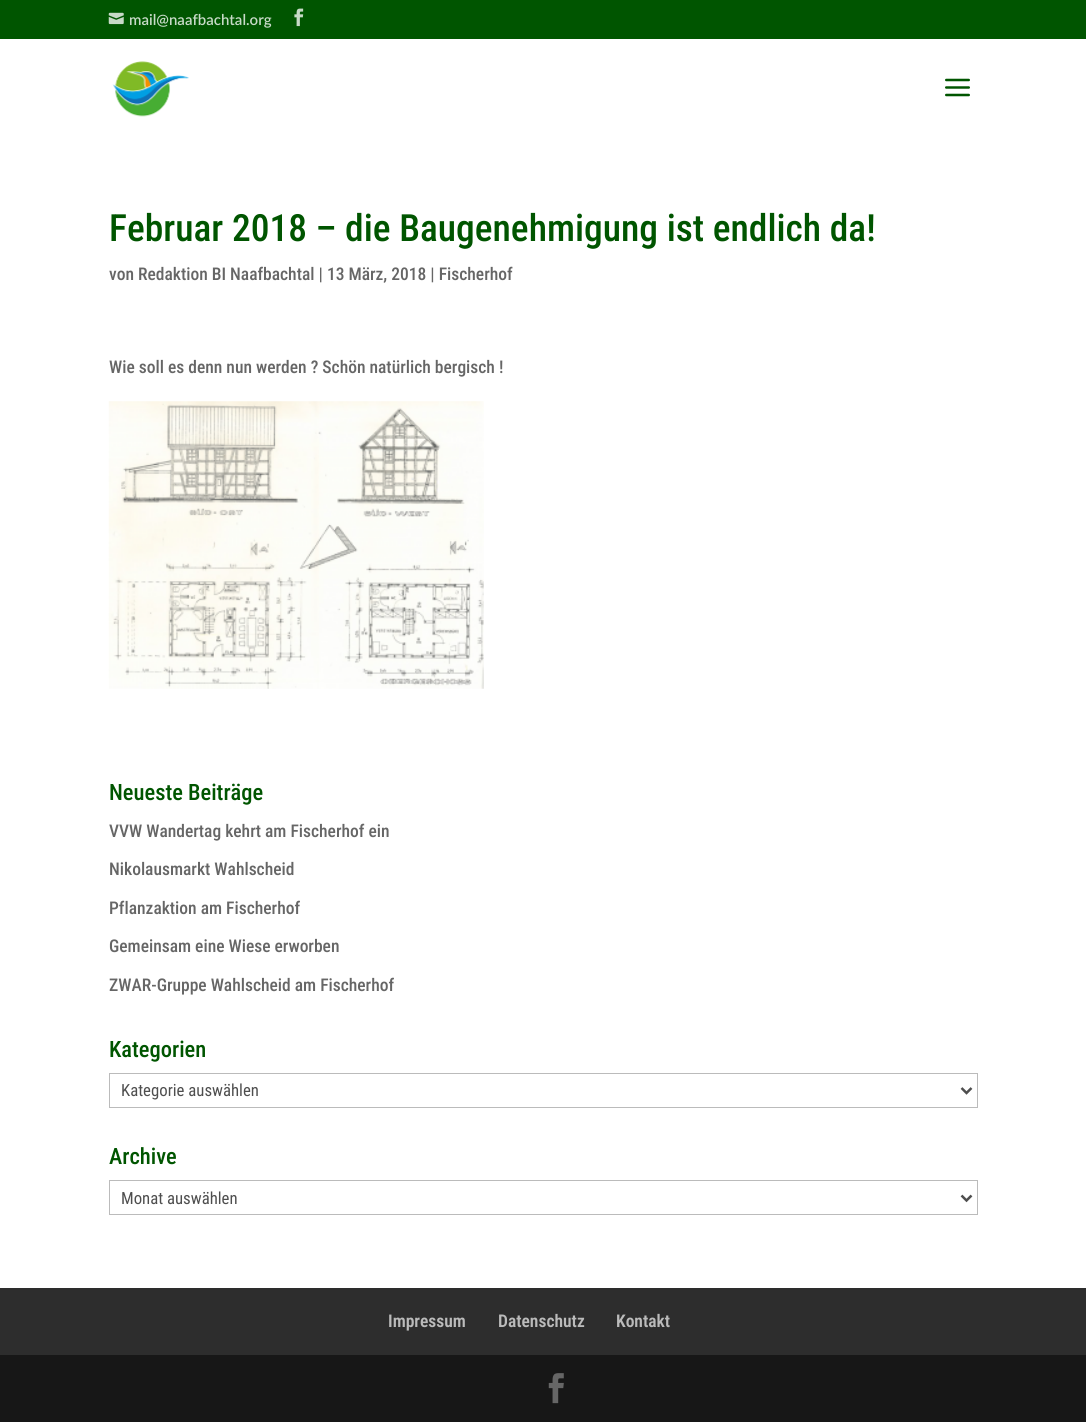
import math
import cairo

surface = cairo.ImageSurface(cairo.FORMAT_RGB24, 1086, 1422)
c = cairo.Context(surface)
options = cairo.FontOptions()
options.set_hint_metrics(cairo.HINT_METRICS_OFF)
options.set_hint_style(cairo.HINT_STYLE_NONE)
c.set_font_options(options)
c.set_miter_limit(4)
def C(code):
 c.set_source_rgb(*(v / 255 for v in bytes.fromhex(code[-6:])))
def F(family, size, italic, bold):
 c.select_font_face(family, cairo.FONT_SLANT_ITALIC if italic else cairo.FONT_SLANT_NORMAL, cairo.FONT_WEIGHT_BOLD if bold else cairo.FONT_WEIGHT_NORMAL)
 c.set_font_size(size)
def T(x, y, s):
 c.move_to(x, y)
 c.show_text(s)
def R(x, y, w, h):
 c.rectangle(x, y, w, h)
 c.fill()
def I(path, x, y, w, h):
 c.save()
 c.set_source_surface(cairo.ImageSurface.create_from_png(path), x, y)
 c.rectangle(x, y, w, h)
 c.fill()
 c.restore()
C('ffffff')
c.paint()
C('005500')
R(0,0,1086,39)
I('1.png',108,12,16,13)
F('Lato SemiBold',15,0,0)
C('c7dac7')
T(129,25,'mail@naafbachtal.org')
I('2.png',294,8,10,19)
I('3.png',112,61,77,56)
I('4.png',945,78,25,19)
F('Roboto Condensed Medium',37.5,0,0)
C('005500')
T(109,241,'Februar 2018 – die Baugenehmigung ist endlich da!')
F('Roboto Condensed Medium',17.5,0,0)
C('666666')
T(109,280,'von Redaktion BI Naafbachtal | 13 März, 2018 | Fischerhof')
T(109,373,'Wie soll es denn nun werden ? Schön natürlich bergisch !')
I('5.png',108,401,376,288)
F('Roboto Condensed Medium',22.5,0,0)
C('005500')
T(109,800,'Neueste Beiträge')
F('Roboto Condensed Medium',17.5,0,0)
C('666666')
T(109,837,'VVW Wandertag kehrt am Fischerhof ein')
T(109,875,'Nikolausmarkt Wahlscheid')
T(109,914,'Pflanzaktion am Fischerhof')
T(109,952,'Gemeinsam eine Wiese erworben')
T(109,991,'ZWAR-Gruppe Wahlscheid am Fischerhof')
F('Roboto Condensed Medium',22.5,0,0)
C('005500')
T(109,1057,'Kategorien')
c.rectangle(109.5,1073.5,868,34)
C('bbbbbb')
c.set_line_width(1)
c.stroke()
c.new_path()
c.move_to(961.5,1088)
c.line_to(966.5,1093)
c.line_to(971.5,1088)
C('4e4e4e')
c.set_line_width(2.5)
c.stroke()
F('Roboto Condensed',16.75,0,0)
T(121,1096,'Kategorie auswählen')
F('Roboto Condensed Medium',22.5,0,0)
C('005500')
T(109,1164,'Archive')
c.rectangle(109.5,1180.5,868,34)
C('bbbbbb')
c.set_line_width(1)
c.stroke()
c.new_path()
c.move_to(961.5,1195.5)
c.line_to(966.5,1200.5)
c.line_to(971.5,1195.5)
C('4e4e4e')
c.set_line_width(2.5)
c.stroke()
F('Roboto Condensed',16.75,0,0)
T(121,1204,'Monat auswählen')
C('2d2d2d')
R(0,1288,1086,67)
F('Roboto Condensed SemiBold',17.5,0,0)
C('bbbbbb')
T(388,1327,'Impressum')
T(498,1327,'Datenschutz')
T(616,1327,'Kontakt')
C('171717')
R(0,1355,1086,67)
I('6.png',548,1373,16,31)
surface.write_to_png('o.png')
